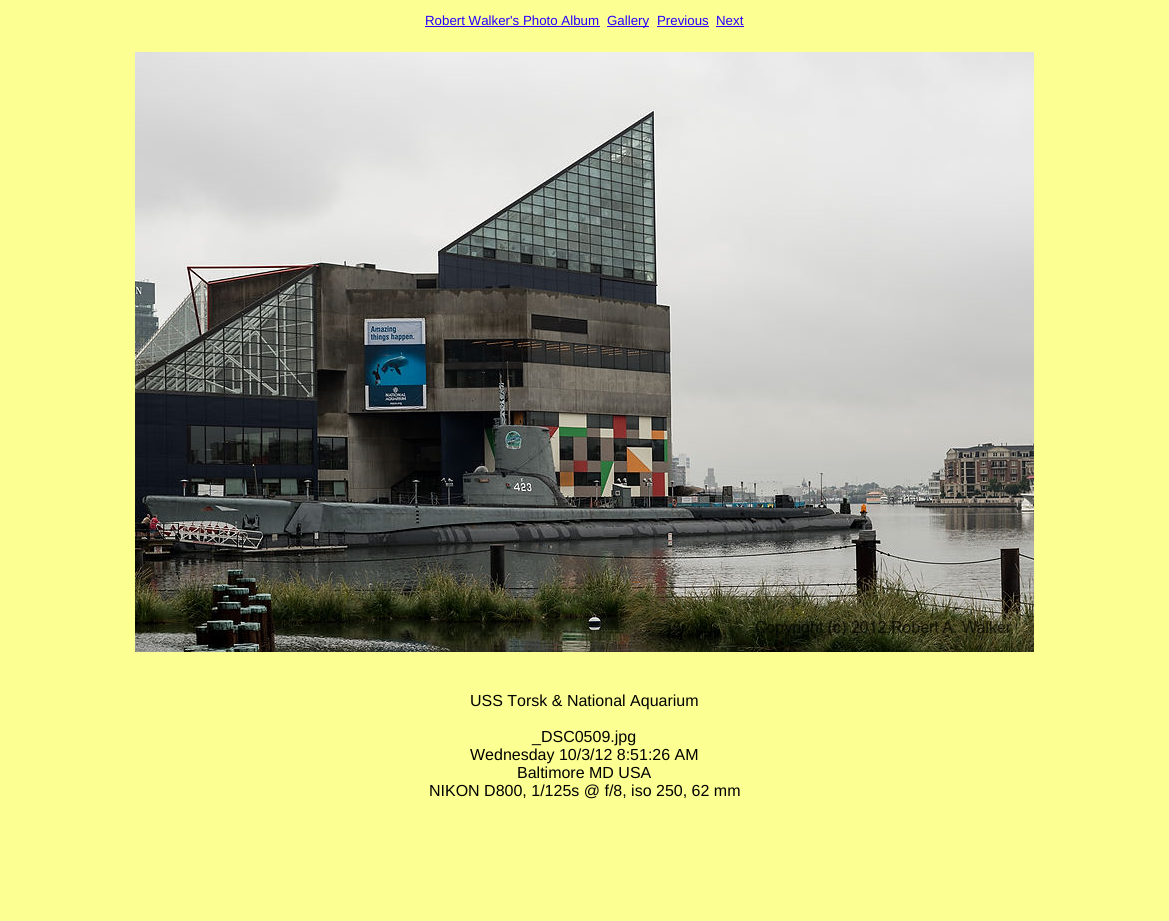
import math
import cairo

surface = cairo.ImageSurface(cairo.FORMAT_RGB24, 1169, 921)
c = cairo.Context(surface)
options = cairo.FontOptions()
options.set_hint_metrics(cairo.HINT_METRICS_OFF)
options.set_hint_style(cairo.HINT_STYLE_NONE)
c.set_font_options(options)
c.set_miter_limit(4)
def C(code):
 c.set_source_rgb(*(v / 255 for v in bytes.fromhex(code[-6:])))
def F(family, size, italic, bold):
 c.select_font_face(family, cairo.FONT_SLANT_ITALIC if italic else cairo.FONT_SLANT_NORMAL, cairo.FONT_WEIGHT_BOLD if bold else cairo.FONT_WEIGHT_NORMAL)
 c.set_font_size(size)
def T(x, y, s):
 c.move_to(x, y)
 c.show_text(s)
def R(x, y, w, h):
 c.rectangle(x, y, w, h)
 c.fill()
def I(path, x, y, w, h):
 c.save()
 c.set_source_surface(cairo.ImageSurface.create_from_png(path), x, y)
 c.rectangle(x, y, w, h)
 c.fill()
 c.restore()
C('fcff91')
c.paint()
F('Liberation Sans',13.3,0,0)
C('2300ff')
T(425,25,'Robert Walker\'s Photo Album')
R(425,26,175,1)
R(607,26,42,1)
T(607,25,'Gallery')
T(657,25,'Previous')
R(657,26,52,1)
T(716,25,'Next')
R(716,26,28,1)
I('1.png',135,52,899,600)
F('Liberation Sans',16,0,0)
C('000000')
T(470,706,'USS Torsk & National Aquarium')
T(532,742,'_DSC0509.jpg')
T(470,760,'Wednesday 10/3/12 8:51:26 AM')
T(517,778,'Baltimore MD USA')
T(429,796,'NIKON D800, 1/125s @ f/8, iso 250, 62 mm')
surface.write_to_png('o.png')
